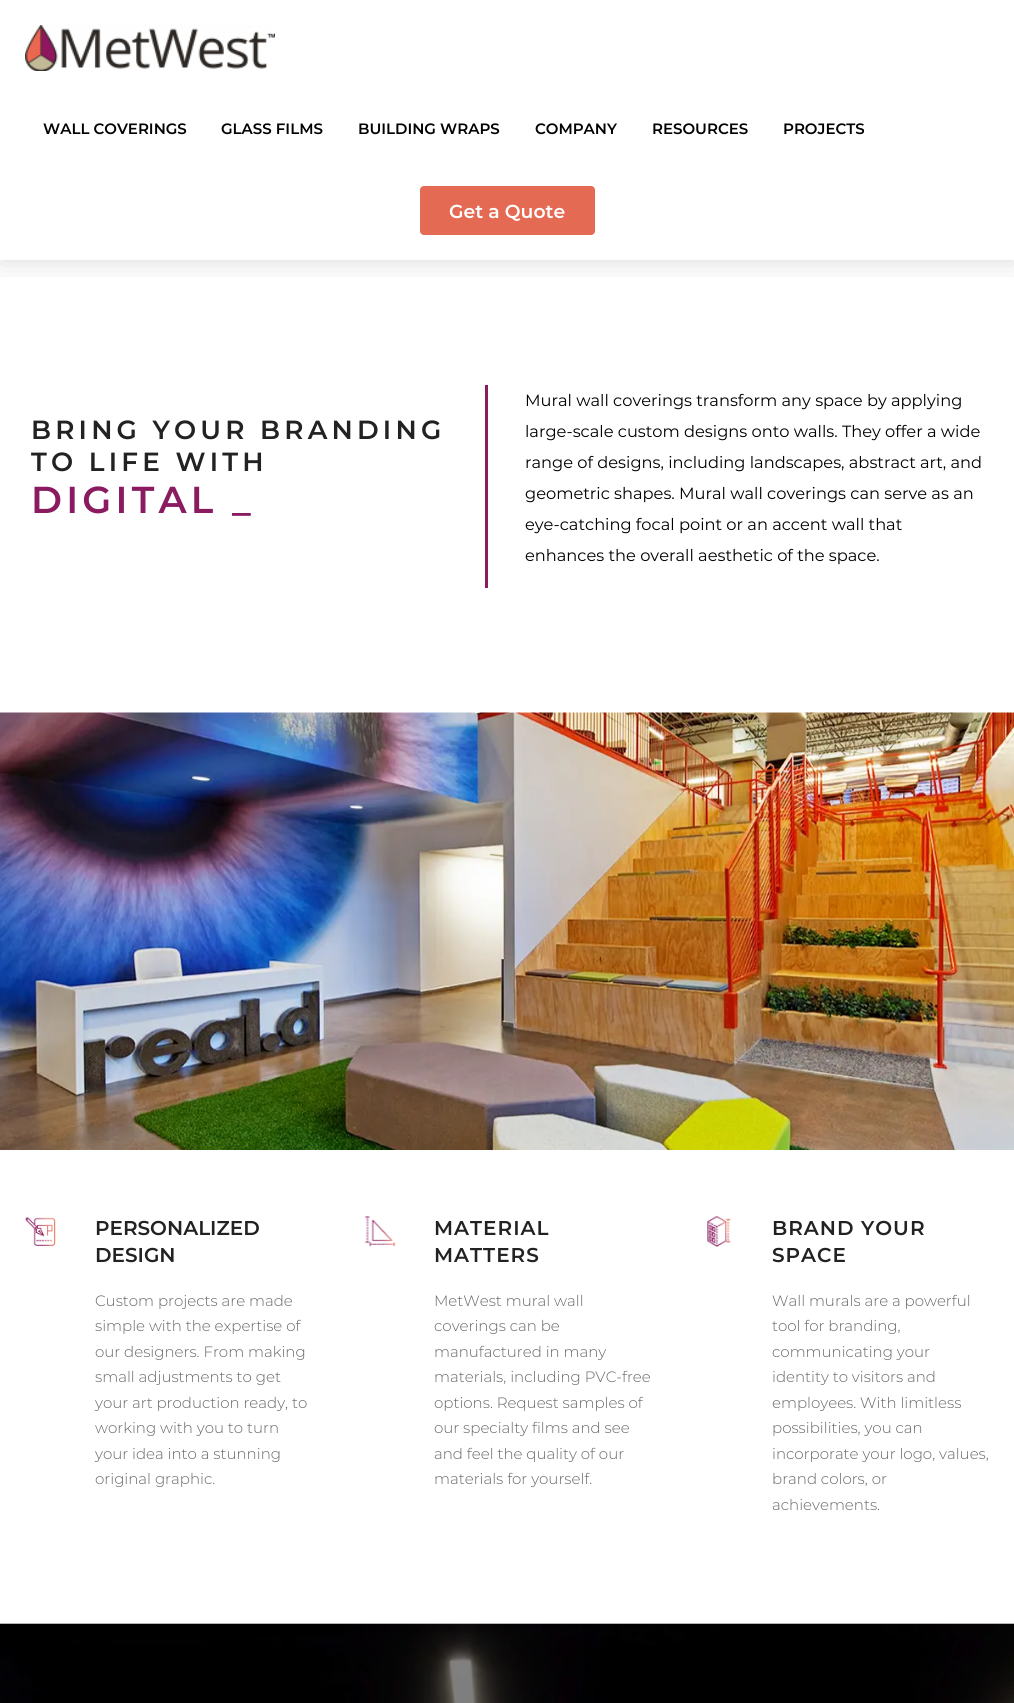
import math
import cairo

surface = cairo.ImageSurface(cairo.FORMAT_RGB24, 1014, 1703)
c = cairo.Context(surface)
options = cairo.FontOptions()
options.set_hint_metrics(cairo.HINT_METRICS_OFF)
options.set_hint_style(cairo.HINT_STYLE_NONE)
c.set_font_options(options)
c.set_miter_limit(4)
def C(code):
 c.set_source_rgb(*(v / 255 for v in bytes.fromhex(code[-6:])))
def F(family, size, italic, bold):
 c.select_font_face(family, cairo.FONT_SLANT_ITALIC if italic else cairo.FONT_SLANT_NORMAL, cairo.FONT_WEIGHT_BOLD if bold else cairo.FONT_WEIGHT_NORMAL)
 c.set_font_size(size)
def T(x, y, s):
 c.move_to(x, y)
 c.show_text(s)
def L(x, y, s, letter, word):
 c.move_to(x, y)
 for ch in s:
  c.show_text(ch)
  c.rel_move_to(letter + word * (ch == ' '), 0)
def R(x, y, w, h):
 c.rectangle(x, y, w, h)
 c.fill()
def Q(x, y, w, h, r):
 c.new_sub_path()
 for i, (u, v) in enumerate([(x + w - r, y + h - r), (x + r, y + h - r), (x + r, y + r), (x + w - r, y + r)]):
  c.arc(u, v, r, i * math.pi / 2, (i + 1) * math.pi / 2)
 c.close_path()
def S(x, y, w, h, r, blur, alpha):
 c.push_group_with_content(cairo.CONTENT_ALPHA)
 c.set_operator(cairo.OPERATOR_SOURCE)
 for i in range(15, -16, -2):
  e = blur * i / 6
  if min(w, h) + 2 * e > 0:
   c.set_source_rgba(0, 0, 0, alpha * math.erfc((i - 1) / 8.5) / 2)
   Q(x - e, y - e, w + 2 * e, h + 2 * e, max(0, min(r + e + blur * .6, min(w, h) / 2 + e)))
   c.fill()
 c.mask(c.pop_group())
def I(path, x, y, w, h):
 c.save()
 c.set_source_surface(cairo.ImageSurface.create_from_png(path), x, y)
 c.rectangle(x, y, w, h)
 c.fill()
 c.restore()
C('ffffff')
c.paint()
c.save()
c.rectangle(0,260,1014,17)
c.clip()
C('000000')
S(0,0,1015,260,0,15,.15)
c.restore()
I('1.png',25,25,250,46)
F('Montserrat SemiBold',15,0,0)
C('000000')
T(43,134,'WALL COVERINGS')
T(221,134,'GLASS FILMS')
T(358,134,'BUILDING WRAPS')
T(535,134,'COMPANY')
T(652,134,'RESOURCES')
T(783,134,'PROJECTS')
C('e56a54')
Q(420,186,175,49,4)
c.fill()
F('Montserrat SemiBold',18.75,0,0)
C('ffffff')
T(449,218,'Get a Quote')
F('Montserrat SemiBold',26.25,0,0)
C('222222')
L(31,439,'BRING YOUR BRANDING',4.2,0)
L(31,471,'TO LIFE WITH',4.2,0)
F('Montserrat SemiBold',37.5,0,0)
C('8a1b61')
L(31,513,'DIGITAL _',4.2,0)
R(485,385,3,203)
F('Montserrat',16.25,0,0)
C('000000')
T(525,406,'Mural wall coverings transform any space by applying')
T(525,437,'large-scale custom designs onto walls. They offer a wide')
T(525,468,'range of designs, including landscapes, abstract art, and')
T(525,499,'geometric shapes. Mural wall coverings can serve as an')
T(525,530,'eye-catching focal point or an accent wall that')
T(525,561,'enhances the overall aesthetic of the space.')
I('2.png',0,712,1014,438)
I('3.png',25,1217,31,29)
F('Montserrat SemiBold',20,0,0)
C('222222')
T(95,1235,'PERSONALIZED')
T(95,1262,'DESIGN')
F('Montserrat Light',15,0,0)
C('666666')
T(95,1306,'Custom projects are made')
T(95,1331,'simple with the expertise of')
T(95,1357,'our designers. From making')
T(95,1382,'small adjustments to get')
T(95,1408,'your art production ready, to')
T(95,1433,'working with you to turn')
T(95,1459,'your idea into a stunning')
T(95,1484,'original graphic.')
I('4.png',364,1215,32,32)
F('Montserrat SemiBold',20,0,0)
C('222222')
L(434,1235,'MATERIAL',1,0)
L(434,1262,'MATTERS',1,0)
F('Montserrat Light',15,0,0)
C('666666')
T(434,1306,'MetWest mural wall')
T(434,1331,'coverings can be')
T(434,1357,'manufactured in many')
T(434,1382,'materials, including PVC-free')
T(434,1408,'options. Request samples of')
T(434,1433,'our specialty films and see')
T(434,1459,'and feel the quality of our')
T(434,1484,'materials for yourself.')
I('5.png',707,1216,24,31)
F('Montserrat SemiBold',20,0,0)
C('222222')
L(772,1235,'BRAND YOUR',1,0)
L(772,1262,'SPACE',1,0)
F('Montserrat Light',15,0,0)
C('666666')
T(772,1306,'Wall murals are a powerful')
T(772,1331,'tool for branding,')
T(772,1357,'communicating your')
T(772,1382,'identity to visitors and')
T(772,1408,'employees. With limitless')
T(772,1433,'possibilities, you can')
T(772,1459,'incorporate your logo, values,')
T(772,1484,'brand colors, or')
T(772,1510,'achievements.')
I('6.png',0,1623,1014,80)
c.set_source_rgba(0.004,0.086,0.251,0.05)
R(0,1624,1,79)
surface.write_to_png('o.png')
